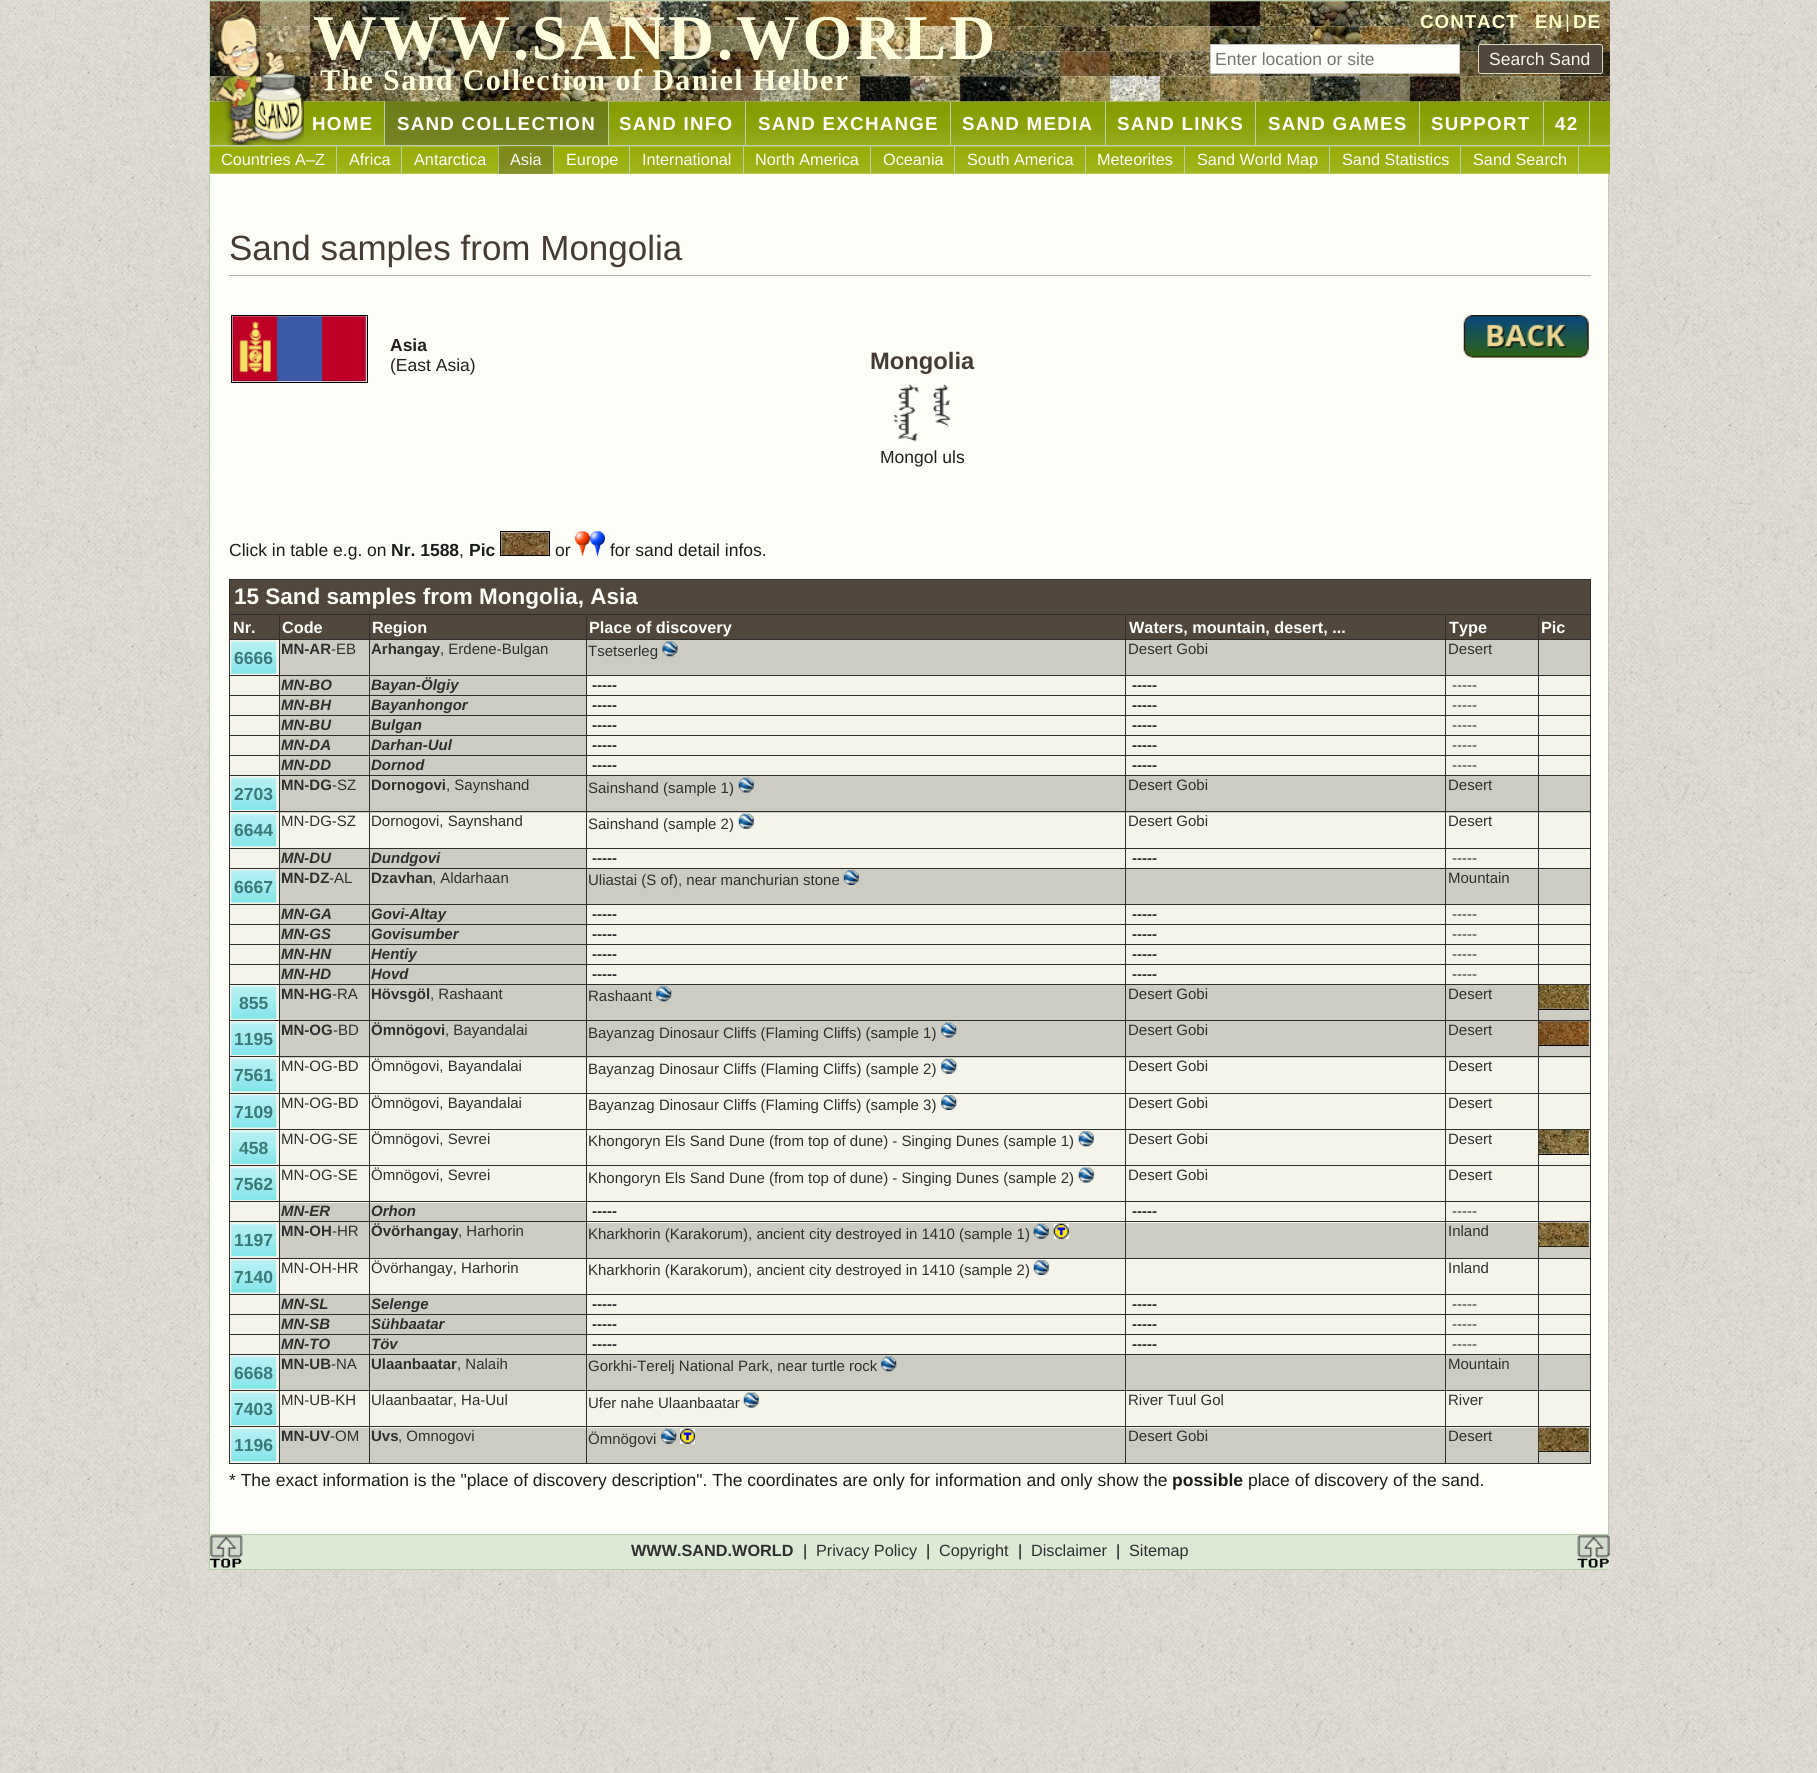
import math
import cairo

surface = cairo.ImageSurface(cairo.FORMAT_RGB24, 1817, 1773)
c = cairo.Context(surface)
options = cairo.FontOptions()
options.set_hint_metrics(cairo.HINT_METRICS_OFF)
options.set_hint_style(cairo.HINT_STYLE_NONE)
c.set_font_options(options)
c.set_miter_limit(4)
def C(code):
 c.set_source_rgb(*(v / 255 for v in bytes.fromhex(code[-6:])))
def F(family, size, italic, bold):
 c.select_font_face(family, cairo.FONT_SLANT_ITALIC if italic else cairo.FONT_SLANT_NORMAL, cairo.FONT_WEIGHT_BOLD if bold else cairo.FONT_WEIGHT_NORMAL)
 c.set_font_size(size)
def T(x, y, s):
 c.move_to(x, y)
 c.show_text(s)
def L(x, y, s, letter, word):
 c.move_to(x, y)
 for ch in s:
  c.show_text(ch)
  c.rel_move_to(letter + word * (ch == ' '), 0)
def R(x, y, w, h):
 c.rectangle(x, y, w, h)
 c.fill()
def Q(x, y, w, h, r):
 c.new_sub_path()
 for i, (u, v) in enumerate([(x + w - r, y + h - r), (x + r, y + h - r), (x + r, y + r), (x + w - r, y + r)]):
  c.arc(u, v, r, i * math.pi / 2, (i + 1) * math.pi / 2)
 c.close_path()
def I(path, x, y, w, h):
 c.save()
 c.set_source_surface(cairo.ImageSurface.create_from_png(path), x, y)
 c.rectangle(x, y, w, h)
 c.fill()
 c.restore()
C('ffffff')
c.paint()
I('1.png',0,0,1817,1773)
C('fefef8')
R(210,1,1398,1533)
c.rectangle(209.5,.5,1399,1569)
C('b8d0aa')
c.set_line_width(1)
c.stroke()
I('2.png',210,1,1400,26)
I('4.png',210,26,1400,26)
I('5.png',210,51,1400,26)
I('7.png',210,101,1400,44)
R(384,101,1,44)
I('8.png',385,101,223,44)
R(608,101,1,44)
R(745,101,1,44)
R(950,101,1,44)
R(1105,101,1,44)
R(1255,101,1,44)
R(1419,101,1,44)
R(1543,101,1,44)
R(1589,101,1,44)
I('6.png',210,76,1400,26)
I('3.png',210,1,94,144)
F('Liberation Serif',63.75,0,1)
C('ffffdd')
L(313,59,'WWW.SAND.WORLD',2.9,0)
F('Liberation Sans',18.75,0,1)
C('ffffcc')
L(1420,28,'CONTACT',1,0)
L(1535,28,'EN',1,0)
F('Liberation Sans',18.75,0,0)
L(1565,28,'|',1,0)
F('Liberation Sans',18.75,0,1)
L(1573,28,'DE',1,0)
C('fefef8')
c.rectangle(1210.5,44.5,249,29)
c.fill_preserve()
C('c8c8c8')
c.stroke()
F('Liberation Sans',17.5,0,0)
C('757575')
T(1215,65,'Enter location or site')
C('51473d')
Q(1478.5,44.5,124,29,2)
c.fill_preserve()
C('d9d9c0')
c.stroke()
C('f4f4ea')
T(1489,65,'Search Sand')
F('Liberation Serif',30,0,1)
C('ffffdd')
L(320,90,'The Sand Collection of Daniel Helber',1.4,0)
F('Liberation Sans',18.75,0,1)
C('ffffff')
L(312,130,'HOME',1.25,0)
L(397,130,'SAND COLLECTION',1.25,0)
L(619,130,'SAND INFO',1.25,0)
L(758,130,'SAND EXCHANGE',1.25,0)
L(962,130,'SAND MEDIA',1.25,0)
L(1117,130,'SAND LINKS',1.25,0)
L(1268,130,'SAND GAMES',1.25,0)
L(1431,130,'SUPPORT',1.25,0)
L(1555,130,'42',1.25,0)
C('b8d0aa')
R(210,145,1398,1)
I('9.png',210,146,1400,28)
R(336,146,1,28)
F('Liberation Sans',16.25,0,0)
C('ffffff')
T(221,165,'Countries A–Z')
C('b8d0aa')
R(401,146,1,28)
C('ffffff')
T(349,165,'Africa')
C('b8d0aa')
R(498,146,1,28)
C('ffffff')
T(414,165,'Antarctica')
I('10.png',498,146,55,28)
C('b8d0aa')
R(553,146,1,28)
C('ffffff')
T(510,165,'Asia')
C('b8d0aa')
R(629,146,1,28)
C('ffffff')
T(566,165,'Europe')
C('b8d0aa')
R(743,146,1,28)
C('ffffff')
T(642,165,'International')
C('b8d0aa')
R(870,146,1,28)
C('ffffff')
T(755,165,'North America')
C('b8d0aa')
R(954,146,1,28)
C('ffffff')
T(883,165,'Oceania')
C('b8d0aa')
R(1085,146,1,28)
C('ffffff')
T(967,165,'South America')
C('b8d0aa')
R(1184,146,1,28)
C('ffffff')
T(1097,165,'Meteorites')
C('b8d0aa')
R(1329,146,1,28)
C('ffffff')
T(1197,165,'Sand World Map')
C('b8d0aa')
R(1460,146,1,28)
C('ffffff')
T(1342,165,'Sand Statistics')
C('b8d0aa')
R(1578,146,1,28)
C('ffffff')
T(1473,165,'Sand Search')
C('afafaf')
R(229,275,1362,1)
F('Liberation Sans',35,0,0)
C('453c34')
T(229,260,'Sand samples from Mongolia')
c.rectangle(231.5,315.5,136,67)
C('000000')
c.stroke()
I('11.png',232,316,135,66)
F('Liberation Sans',17.5,0,1)
C('221e1d')
T(390,351,'Asia')
F('Liberation Sans',17.5,0,0)
T(390,371,'(East Asia)')
F('Liberation Sans',23.75,0,1)
C('453c34')
T(870,369,'Mongolia')
I('12.png',893,383,58,59)
F('Liberation Sans',17.5,0,0)
C('221e1d')
T(880,463,'Mongol uls')
I('13.png',1463,315,126,43)
c.rectangle(500.5,531.5,49,24)
C('000000')
c.stroke()
I('14.png',575,531,15,26)
I('15.png',590,531,15,26)
C('191e1d')
T(229,556,'Click in table e.g. on')
F('Liberation Sans',17.5,0,1)
T(391,556,'Nr. 1588')
F('Liberation Sans',17.5,0,0)
T(459,556,',')
F('Liberation Sans',17.5,0,1)
T(469,556,'Pic')
I('16.png',501,532,48,23)
F('Liberation Sans',17.5,0,0)
T(555,556,'or')
T(610,556,'for sand detail infos.')
C('51473d')
R(230,580,1360,34)
C('2f2f2f')
R(229,579,1362,1)
R(1538,614,53,1)
R(1538,639,53,1)
R(1538,675,53,1)
R(1538,695,53,1)
R(1538,715,53,1)
R(1538,735,53,1)
R(1538,755,53,1)
R(1538,775,53,1)
C('ccccc2')
R(1539,776,51,37)
C('2f2f2f')
R(1538,811,53,1)
R(1538,848,53,1)
R(1538,868,53,1)
R(1538,904,53,1)
R(1538,924,53,1)
R(1538,944,53,1)
R(1538,964,53,1)
R(1538,984,53,1)
R(1538,1020,53,1)
C('ccccc2')
R(1539,1021,51,37)
C('2f2f2f')
R(1538,1056,53,1)
R(1538,1093,53,1)
R(1538,1129,53,1)
R(1538,1165,53,1)
C('f4f4ea')
R(1539,1166,51,57)
C('2f2f2f')
R(1538,1201,53,1)
R(1538,1221,53,1)
R(1538,1258,53,1)
R(1538,1294,53,1)
R(1538,1314,53,1)
R(1538,1334,53,1)
R(1538,1354,53,1)
R(1538,1390,53,1)
C('f4f4ea')
R(1539,1391,51,37)
C('2f2f2f')
R(1538,1426,53,1)
R(1590,1426,1,38)
R(1590,1390,1,38)
R(1590,1354,1,37)
R(1590,1334,1,21)
R(1590,1314,1,21)
R(1590,1294,1,21)
R(1590,1258,1,37)
R(1590,1221,1,38)
R(1590,1201,1,22)
R(1590,1165,1,38)
R(1590,1129,1,37)
R(1590,1093,1,37)
R(1590,1056,1,38)
R(1590,1020,1,38)
R(1590,984,1,37)
R(1590,964,1,21)
R(1590,944,1,21)
R(1590,924,1,21)
R(1590,904,1,21)
R(1590,868,1,37)
R(1590,848,1,21)
R(1590,811,1,38)
R(1590,775,1,38)
R(1590,755,1,21)
R(1590,735,1,21)
R(1590,715,1,21)
R(1590,695,1,21)
R(1590,675,1,21)
R(1590,639,1,37)
R(1590,614,1,26)
R(1590,579,1,36)
C('ccccc2')
R(1446,776,92,37)
R(1446,1021,92,37)
C('f4f4ea')
R(1446,1166,92,57)
R(1446,1391,92,37)
C('2f2f2f')
R(1538,1463,53,1)
R(1538,1426,1,38)
R(1445,1426,94,1)
R(1538,1390,1,38)
R(1445,1390,94,1)
R(1538,1354,1,37)
R(1445,1354,94,1)
R(1538,1334,1,21)
R(1445,1334,94,1)
R(1538,1314,1,21)
R(1445,1314,94,1)
R(1538,1294,1,21)
R(1445,1294,94,1)
R(1538,1258,1,37)
R(1445,1258,94,1)
R(1538,1221,1,38)
R(1445,1221,94,1)
R(1538,1201,1,22)
R(1445,1201,94,1)
R(1538,1165,1,38)
R(1445,1165,94,1)
R(1538,1129,1,37)
R(1445,1129,94,1)
R(1538,1093,1,37)
R(1445,1093,94,1)
R(1538,1056,1,38)
R(1445,1056,94,1)
R(1538,1020,1,38)
R(1445,1020,94,1)
R(1538,984,1,37)
R(1445,984,94,1)
R(1538,964,1,21)
R(1445,964,94,1)
R(1538,944,1,21)
R(1445,944,94,1)
R(1538,924,1,21)
R(1445,924,94,1)
R(1538,904,1,21)
R(1445,904,94,1)
R(1538,868,1,37)
R(1445,868,94,1)
R(1538,848,1,21)
R(1445,848,94,1)
R(1538,811,1,38)
R(1445,811,94,1)
R(1538,775,1,38)
R(1445,775,94,1)
R(1538,755,1,21)
R(1445,755,94,1)
R(1538,735,1,21)
R(1445,735,94,1)
R(1538,715,1,21)
R(1445,715,94,1)
R(1538,695,1,21)
R(1445,695,94,1)
R(1538,675,1,21)
R(1445,675,94,1)
R(1538,639,1,37)
R(1445,639,94,1)
R(1538,614,1,26)
R(1445,614,94,1)
C('ccccc2')
R(1126,776,319,37)
R(1126,1021,319,37)
C('f4f4ea')
R(1126,1166,319,57)
R(1126,1391,319,37)
C('2f2f2f')
R(1445,1463,94,1)
R(1445,1426,1,38)
R(1125,1426,321,1)
R(1445,1390,1,38)
R(1125,1390,321,1)
R(1445,1354,1,37)
R(1125,1354,321,1)
R(1445,1334,1,21)
R(1125,1334,321,1)
R(1445,1314,1,21)
R(1125,1314,321,1)
R(1445,1294,1,21)
R(1125,1294,321,1)
R(1445,1258,1,37)
R(1125,1258,321,1)
R(1445,1221,1,38)
R(1125,1221,321,1)
R(1445,1201,1,22)
R(1125,1201,321,1)
R(1445,1165,1,38)
R(1125,1165,321,1)
R(1445,1129,1,37)
R(1125,1129,321,1)
R(1445,1093,1,37)
R(1125,1093,321,1)
R(1445,1056,1,38)
R(1125,1056,321,1)
R(1445,1020,1,38)
R(1125,1020,321,1)
R(1445,984,1,37)
R(1125,984,321,1)
R(1445,964,1,21)
R(1125,964,321,1)
R(1445,944,1,21)
R(1125,944,321,1)
R(1445,924,1,21)
R(1125,924,321,1)
R(1445,904,1,21)
R(1125,904,321,1)
R(1445,868,1,37)
R(1125,868,321,1)
R(1445,848,1,21)
R(1125,848,321,1)
R(1445,811,1,38)
R(1125,811,321,1)
R(1445,775,1,38)
R(1125,775,321,1)
R(1445,755,1,21)
R(1125,755,321,1)
R(1445,735,1,21)
R(1125,735,321,1)
R(1445,715,1,21)
R(1125,715,321,1)
R(1445,695,1,21)
R(1125,695,321,1)
R(1445,675,1,21)
R(1125,675,321,1)
R(1445,639,1,37)
R(1125,639,321,1)
R(1445,614,1,26)
R(1125,614,321,1)
C('ccccc2')
R(587,776,538,37)
R(587,1021,538,37)
C('f4f4ea')
R(587,1166,538,57)
R(587,1391,538,37)
C('2f2f2f')
R(1125,1463,321,1)
R(1125,1426,1,38)
R(586,1426,540,1)
R(1125,1390,1,38)
R(586,1390,540,1)
R(1125,1354,1,37)
R(586,1354,540,1)
R(1125,1334,1,21)
R(586,1334,540,1)
R(1125,1314,1,21)
R(586,1314,540,1)
R(1125,1294,1,21)
R(586,1294,540,1)
R(1125,1258,1,37)
R(586,1258,540,1)
R(1125,1221,1,38)
R(586,1221,540,1)
R(1125,1201,1,22)
R(586,1201,540,1)
R(1125,1165,1,38)
R(586,1165,540,1)
R(1125,1129,1,37)
R(586,1129,540,1)
R(1125,1093,1,37)
R(586,1093,540,1)
R(1125,1056,1,38)
R(586,1056,540,1)
R(1125,1020,1,38)
R(586,1020,540,1)
R(1125,984,1,37)
R(586,984,540,1)
R(1125,964,1,21)
R(586,964,540,1)
R(1125,944,1,21)
R(586,944,540,1)
R(1125,924,1,21)
R(586,924,540,1)
R(1125,904,1,21)
R(586,904,540,1)
R(1125,868,1,37)
R(586,868,540,1)
R(1125,848,1,21)
R(586,848,540,1)
R(1125,811,1,38)
R(586,811,540,1)
R(1125,775,1,38)
R(586,775,540,1)
R(1125,755,1,21)
R(586,755,540,1)
R(1125,735,1,21)
R(586,735,540,1)
R(1125,715,1,21)
R(586,715,540,1)
R(1125,695,1,21)
R(586,695,540,1)
R(1125,675,1,21)
R(586,675,540,1)
R(1125,639,1,37)
R(586,639,540,1)
R(1125,614,1,26)
R(586,614,540,1)
C('ccccc2')
R(370,776,216,37)
R(370,1021,216,37)
C('f4f4ea')
R(370,1166,216,37)
C('ccccc2')
R(370,1203,216,55)
C('f4f4ea')
R(370,1391,216,37)
C('2f2f2f')
R(586,1463,540,1)
R(586,1426,1,38)
R(369,1426,219,1)
R(586,1390,1,38)
R(369,1390,219,1)
R(586,1354,1,37)
R(369,1354,219,1)
R(586,1334,1,21)
R(369,1334,219,1)
R(586,1314,1,21)
R(369,1314,219,1)
R(586,1294,1,21)
R(369,1294,219,1)
R(586,1258,1,37)
R(369,1258,219,1)
R(586,1221,1,38)
R(369,1221,219,1)
R(586,1201,1,22)
R(369,1201,219,1)
R(586,1165,1,38)
R(369,1165,219,1)
R(586,1129,1,37)
R(369,1129,219,1)
R(586,1093,1,37)
R(369,1093,219,1)
R(586,1056,1,38)
R(369,1056,219,1)
R(586,1020,1,38)
R(369,1020,219,1)
R(586,984,1,37)
R(369,984,219,1)
R(586,964,1,21)
R(369,964,219,1)
R(586,944,1,21)
R(369,944,219,1)
R(586,924,1,21)
R(369,924,219,1)
R(586,904,1,21)
R(369,904,219,1)
R(586,868,1,37)
R(369,868,219,1)
R(586,848,1,21)
R(369,848,219,1)
R(586,811,1,38)
R(369,811,219,1)
R(586,775,1,38)
R(369,775,219,1)
R(586,755,1,21)
R(369,755,219,1)
R(586,735,1,21)
R(369,735,219,1)
R(586,715,1,21)
R(369,715,219,1)
R(586,695,1,21)
R(369,695,219,1)
R(586,675,1,21)
R(369,675,219,1)
R(586,639,1,37)
R(369,639,219,1)
R(586,614,1,26)
R(369,614,219,1)
C('ccccc2')
R(280,776,89,37)
R(280,1021,89,37)
C('f4f4ea')
R(280,1166,89,37)
C('ccccc2')
R(280,1203,89,55)
C('f4f4ea')
R(280,1391,89,37)
C('2f2f2f')
R(369,1463,219,1)
R(369,1426,1,38)
R(279,1426,91,1)
R(369,1390,1,38)
R(279,1390,91,1)
R(369,1354,1,37)
R(279,1354,91,1)
R(369,1334,1,21)
R(279,1334,91,1)
R(369,1314,1,21)
R(279,1314,91,1)
R(369,1294,1,21)
R(279,1294,91,1)
R(369,1258,1,37)
R(279,1258,91,1)
R(369,1221,1,38)
R(279,1221,91,1)
R(369,1201,1,22)
R(279,1201,91,1)
R(369,1165,1,38)
R(279,1165,91,1)
R(369,1129,1,37)
R(279,1129,91,1)
R(369,1093,1,37)
R(279,1093,91,1)
R(369,1056,1,38)
R(279,1056,91,1)
R(369,1020,1,38)
R(279,1020,91,1)
R(369,984,1,37)
R(279,984,91,1)
R(369,964,1,21)
R(279,964,91,1)
R(369,944,1,21)
R(279,944,91,1)
R(369,924,1,21)
R(279,924,91,1)
R(369,904,1,21)
R(279,904,91,1)
R(369,868,1,37)
R(279,868,91,1)
R(369,848,1,21)
R(279,848,91,1)
R(369,811,1,38)
R(279,811,91,1)
R(369,775,1,38)
R(279,775,91,1)
R(369,755,1,21)
R(279,755,91,1)
R(369,735,1,21)
R(279,735,91,1)
R(369,715,1,21)
R(279,715,91,1)
R(369,695,1,21)
R(279,695,91,1)
R(369,675,1,21)
R(279,675,91,1)
R(369,639,1,37)
R(279,639,91,1)
R(369,614,1,26)
R(279,614,91,1)
C('f4f4ea')
R(230,776,49,72)
R(230,1021,49,72)
R(230,1166,49,92)
R(230,1391,49,72)
C('2f2f2f')
R(279,1463,91,1)
R(279,1426,1,38)
R(229,1426,51,1)
R(279,1390,1,38)
R(229,1390,51,1)
R(279,1354,1,37)
R(229,1354,51,1)
R(279,1334,1,21)
R(229,1334,51,1)
R(279,1314,1,21)
R(229,1314,51,1)
R(279,1294,1,21)
R(229,1294,51,1)
R(279,1258,1,37)
R(229,1258,51,1)
R(279,1221,1,38)
R(229,1221,51,1)
R(279,1201,1,22)
R(229,1201,51,1)
R(279,1165,1,38)
R(229,1165,51,1)
R(279,1129,1,37)
R(229,1129,51,1)
R(279,1093,1,37)
R(229,1093,51,1)
R(279,1056,1,38)
R(229,1056,51,1)
R(279,1020,1,38)
R(229,1020,51,1)
R(279,984,1,37)
R(229,984,51,1)
R(279,964,1,21)
R(229,964,51,1)
R(279,944,1,21)
R(229,944,51,1)
R(279,924,1,21)
R(229,924,51,1)
R(279,904,1,21)
R(229,904,51,1)
R(279,868,1,37)
R(229,868,51,1)
R(279,848,1,21)
R(229,848,51,1)
R(279,811,1,38)
R(229,811,51,1)
R(279,775,1,38)
R(229,775,51,1)
R(279,755,1,21)
R(229,755,51,1)
R(279,735,1,21)
R(229,735,51,1)
R(279,715,1,21)
R(229,715,51,1)
R(279,695,1,21)
R(229,695,51,1)
R(279,675,1,21)
R(229,675,51,1)
R(279,639,1,37)
R(229,639,51,1)
R(279,614,1,26)
R(229,614,51,1)
R(229,1463,51,1)
R(229,1426,1,38)
R(229,1390,1,38)
R(229,1354,1,37)
R(229,1334,1,21)
R(229,1314,1,21)
R(229,1294,1,21)
R(229,1258,1,37)
R(229,1221,1,38)
R(229,1201,1,22)
R(229,1165,1,38)
R(229,1129,1,37)
R(229,1093,1,37)
R(229,1056,1,38)
R(229,1020,1,38)
R(229,984,1,37)
R(229,964,1,21)
R(229,944,1,21)
R(229,924,1,21)
R(229,904,1,21)
R(229,868,1,37)
R(229,848,1,21)
R(229,811,1,38)
R(229,775,1,38)
R(229,755,1,21)
R(229,735,1,21)
R(229,715,1,21)
R(229,695,1,21)
R(229,675,1,21)
R(229,639,1,37)
R(229,614,1,26)
R(229,579,1,36)
F('Liberation Sans',22.5,0,1)
C('fefef8')
T(234,604,'15 Sand samples from Mongolia, Asia')
C('51473d')
R(230,615,49,24)
F('Liberation Sans',16.25,0,1)
C('fefef8')
T(233,633,'Nr.')
C('51473d')
R(280,615,89,24)
C('fefef8')
T(282,633,'Code')
C('51473d')
R(370,615,216,24)
C('fefef8')
T(372,633,'Region')
C('51473d')
R(587,615,538,24)
C('fefef8')
T(589,633,'Place of discovery')
C('51473d')
R(1126,615,319,24)
C('fefef8')
T(1129,633,'Waters, mountain, desert, ...')
C('51473d')
R(1446,615,92,24)
C('fefef8')
T(1449,633,'Type')
C('51473d')
R(1539,615,51,24)
C('fefef8')
T(1541,633,'Pic')
C('f4f4ea')
R(230,640,49,35)
I('17.png',231,641,46,33)
F('Liberation Sans',17.5,0,1)
C('3c7878')
T(234,664,'6666')
C('ccccc2')
R(280,640,89,35)
F('Liberation Sans',15,0,1)
C('2f2f2f')
T(281,654,'MN-AR')
F('Liberation Sans',15,0,0)
T(331,654,'-EB')
C('ccccc2')
R(370,640,216,35)
F('Liberation Sans',15,0,1)
C('2f2f2f')
T(371,654,'Arhangay')
F('Liberation Sans',15,0,0)
T(440,654,', Erdene-Bulgan')
C('ccccc2')
R(587,640,538,35)
C('2f2f2f')
T(588,656,'Tsetserleg')
I('18.png',662,641,16,16)
C('ccccc2')
R(1126,640,319,35)
C('2f2f2f')
T(1128,654,'Desert Gobi')
C('ccccc2')
R(1446,640,92,35)
C('2f2f2f')
T(1448,654,'Desert')
C('ccccc2')
R(1539,640,51,35)
C('f4f4ea')
R(230,676,49,19)
C('ccccc2')
R(280,676,89,19)
F('Liberation Sans',15,1,1)
C('2f2f2f')
T(281,690,'MN-BO')
C('ccccc2')
R(370,676,216,19)
C('2f2f2f')
T(371,690,'Bayan-Ölgiy')
C('f4f4ea')
R(587,676,538,19)
F('Liberation Sans',15,0,1)
C('2f2f2f')
T(592,690,'-----')
C('f4f4ea')
R(1126,676,319,19)
C('2f2f2f')
T(1132,690,'-----')
C('f4f4ea')
R(1446,676,92,19)
F('Liberation Sans',15,0,0)
C('2f2f2f')
T(1452,690,'-----')
C('f4f4ea')
R(1539,676,51,19)
R(230,696,49,19)
C('ccccc2')
R(280,696,89,19)
F('Liberation Sans',15,1,1)
C('2f2f2f')
T(281,710,'MN-BH')
C('ccccc2')
R(370,696,216,19)
C('2f2f2f')
T(371,710,'Bayanhongor')
C('f4f4ea')
R(587,696,538,19)
F('Liberation Sans',15,0,1)
C('2f2f2f')
T(592,710,'-----')
C('f4f4ea')
R(1126,696,319,19)
C('2f2f2f')
T(1132,710,'-----')
C('f4f4ea')
R(1446,696,92,19)
F('Liberation Sans',15,0,0)
C('2f2f2f')
T(1452,710,'-----')
C('f4f4ea')
R(1539,696,51,19)
R(230,716,49,19)
C('ccccc2')
R(280,716,89,19)
F('Liberation Sans',15,1,1)
C('2f2f2f')
T(281,730,'MN-BU')
C('ccccc2')
R(370,716,216,19)
C('2f2f2f')
T(371,730,'Bulgan')
C('f4f4ea')
R(587,716,538,19)
F('Liberation Sans',15,0,1)
C('2f2f2f')
T(592,730,'-----')
C('f4f4ea')
R(1126,716,319,19)
C('2f2f2f')
T(1132,730,'-----')
C('f4f4ea')
R(1446,716,92,19)
F('Liberation Sans',15,0,0)
C('2f2f2f')
T(1452,730,'-----')
C('f4f4ea')
R(1539,716,51,19)
R(230,736,49,19)
C('ccccc2')
R(280,736,89,19)
F('Liberation Sans',15,1,1)
C('2f2f2f')
T(281,750,'MN-DA')
C('ccccc2')
R(370,736,216,19)
C('2f2f2f')
T(371,750,'Darhan-Uul')
C('f4f4ea')
R(587,736,538,19)
F('Liberation Sans',15,0,1)
C('2f2f2f')
T(592,750,'-----')
C('f4f4ea')
R(1126,736,319,19)
C('2f2f2f')
T(1132,750,'-----')
C('f4f4ea')
R(1446,736,92,19)
F('Liberation Sans',15,0,0)
C('2f2f2f')
T(1452,750,'-----')
C('f4f4ea')
R(1539,736,51,19)
R(230,756,49,19)
C('ccccc2')
R(280,756,89,19)
F('Liberation Sans',15,1,1)
C('2f2f2f')
T(281,770,'MN-DD')
C('ccccc2')
R(370,756,216,19)
C('2f2f2f')
T(371,770,'Dornod')
C('f4f4ea')
R(587,756,538,19)
F('Liberation Sans',15,0,1)
C('2f2f2f')
T(592,770,'-----')
C('f4f4ea')
R(1126,756,319,19)
C('2f2f2f')
T(1132,770,'-----')
C('f4f4ea')
R(1446,756,92,19)
F('Liberation Sans',15,0,0)
C('2f2f2f')
T(1452,770,'-----')
C('f4f4ea')
R(1539,756,51,19)
I('19.png',231,777,46,33)
F('Liberation Sans',17.5,0,1)
C('3c7878')
T(234,800,'2703')
F('Liberation Sans',15,0,1)
C('2f2f2f')
T(281,790,'MN-DG')
F('Liberation Sans',15,0,0)
T(332,790,'-SZ')
F('Liberation Sans',15,0,1)
T(371,790,'Dornogovi')
F('Liberation Sans',15,0,0)
T(446,790,', Saynshand')
T(588,793,'Sainshand (sample 1)')
I('20.png',738,777,16,16)
T(1128,790,'Desert Gobi')
T(1448,790,'Desert')
I('21.png',231,813,46,34)
F('Liberation Sans',17.5,0,1)
C('3c7878')
T(234,836,'6644')
C('f4f4ea')
R(280,813,89,35)
F('Liberation Sans',15,0,0)
C('2f2f2f')
T(281,826,'MN-DG-SZ')
C('f4f4ea')
R(370,813,216,35)
C('2f2f2f')
T(371,826,'Dornogovi, Saynshand')
C('f4f4ea')
R(587,813,538,35)
C('2f2f2f')
T(588,829,'Sainshand (sample 2)')
I('22.png',738,813,16,16)
C('f4f4ea')
R(1126,813,319,35)
C('2f2f2f')
T(1128,826,'Desert Gobi')
C('f4f4ea')
R(1446,813,92,35)
C('2f2f2f')
T(1448,826,'Desert')
C('f4f4ea')
R(1539,813,51,35)
R(230,849,49,19)
C('ccccc2')
R(280,849,89,19)
F('Liberation Sans',15,1,1)
C('2f2f2f')
T(281,863,'MN-DU')
C('ccccc2')
R(370,849,216,19)
C('2f2f2f')
T(371,863,'Dundgovi')
C('f4f4ea')
R(587,849,538,19)
F('Liberation Sans',15,0,1)
C('2f2f2f')
T(592,863,'-----')
C('f4f4ea')
R(1126,849,319,19)
C('2f2f2f')
T(1132,863,'-----')
C('f4f4ea')
R(1446,849,92,19)
F('Liberation Sans',15,0,0)
C('2f2f2f')
T(1452,863,'-----')
C('f4f4ea')
R(1539,849,51,19)
R(230,869,49,35)
I('23.png',231,870,46,33)
F('Liberation Sans',17.5,0,1)
C('3c7878')
T(234,893,'6667')
C('ccccc2')
R(280,869,89,35)
F('Liberation Sans',15,0,1)
C('2f2f2f')
T(281,883,'MN-DZ')
F('Liberation Sans',15,0,0)
T(329,883,'-AL')
C('ccccc2')
R(370,869,216,35)
F('Liberation Sans',15,0,1)
C('2f2f2f')
T(371,883,'Dzavhan')
F('Liberation Sans',15,0,0)
T(432,883,', Aldarhaan')
C('ccccc2')
R(587,869,538,35)
C('2f2f2f')
T(588,885,'Uliastai (S of), near manchurian stone')
I('24.png',843,870,16,15)
C('ccccc2')
R(1126,869,319,35)
R(1446,869,92,35)
C('2f2f2f')
T(1448,883,'Mountain')
C('ccccc2')
R(1539,869,51,35)
C('f4f4ea')
R(230,905,49,19)
C('ccccc2')
R(280,905,89,19)
F('Liberation Sans',15,1,1)
C('2f2f2f')
T(281,919,'MN-GA')
C('ccccc2')
R(370,905,216,19)
C('2f2f2f')
T(371,919,'Govi-Altay')
C('f4f4ea')
R(587,905,538,19)
F('Liberation Sans',15,0,1)
C('2f2f2f')
T(592,919,'-----')
C('f4f4ea')
R(1126,905,319,19)
C('2f2f2f')
T(1132,919,'-----')
C('f4f4ea')
R(1446,905,92,19)
F('Liberation Sans',15,0,0)
C('2f2f2f')
T(1452,919,'-----')
C('f4f4ea')
R(1539,905,51,19)
R(230,925,49,19)
C('ccccc2')
R(280,925,89,19)
F('Liberation Sans',15,1,1)
C('2f2f2f')
T(281,939,'MN-GS')
C('ccccc2')
R(370,925,216,19)
C('2f2f2f')
T(371,939,'Govisumber')
C('f4f4ea')
R(587,925,538,19)
F('Liberation Sans',15,0,1)
C('2f2f2f')
T(592,939,'-----')
C('f4f4ea')
R(1126,925,319,19)
C('2f2f2f')
T(1132,939,'-----')
C('f4f4ea')
R(1446,925,92,19)
F('Liberation Sans',15,0,0)
C('2f2f2f')
T(1452,939,'-----')
C('f4f4ea')
R(1539,925,51,19)
R(230,945,49,19)
C('ccccc2')
R(280,945,89,19)
F('Liberation Sans',15,1,1)
C('2f2f2f')
T(281,959,'MN-HN')
C('ccccc2')
R(370,945,216,19)
C('2f2f2f')
T(371,959,'Hentiy')
C('f4f4ea')
R(587,945,538,19)
F('Liberation Sans',15,0,1)
C('2f2f2f')
T(592,959,'-----')
C('f4f4ea')
R(1126,945,319,19)
C('2f2f2f')
T(1132,959,'-----')
C('f4f4ea')
R(1446,945,92,19)
F('Liberation Sans',15,0,0)
C('2f2f2f')
T(1452,959,'-----')
C('f4f4ea')
R(1539,945,51,19)
R(230,965,49,19)
C('ccccc2')
R(280,965,89,19)
F('Liberation Sans',15,1,1)
C('2f2f2f')
T(281,979,'MN-HD')
C('ccccc2')
R(370,965,216,19)
C('2f2f2f')
T(371,979,'Hovd')
C('f4f4ea')
R(587,965,538,19)
F('Liberation Sans',15,0,1)
C('2f2f2f')
T(592,979,'-----')
C('f4f4ea')
R(1126,965,319,19)
C('2f2f2f')
T(1132,979,'-----')
C('f4f4ea')
R(1446,965,92,19)
F('Liberation Sans',15,0,0)
C('2f2f2f')
T(1452,979,'-----')
C('f4f4ea')
R(1539,965,51,19)
R(230,985,49,35)
I('17.png',231,986,46,33)
F('Liberation Sans',17.5,0,1)
C('3c7878')
T(239,1009,'855')
C('ccccc2')
R(280,985,89,35)
F('Liberation Sans',15,0,1)
C('2f2f2f')
T(281,999,'MN-HG')
F('Liberation Sans',15,0,0)
T(332,999,'-RA')
C('ccccc2')
R(370,985,216,35)
F('Liberation Sans',15,0,1)
C('2f2f2f')
T(371,999,'Hövsgöl')
F('Liberation Sans',15,0,0)
T(430,999,', Rashaant')
C('ccccc2')
R(587,985,538,35)
C('2f2f2f')
T(588,1001,'Rashaant')
I('25.png',656,986,16,16)
C('ccccc2')
R(1126,985,319,35)
C('2f2f2f')
T(1128,999,'Desert Gobi')
C('ccccc2')
R(1446,985,92,35)
C('2f2f2f')
T(1448,999,'Desert')
C('ccccc2')
R(1539,985,51,35)
I('26.png',1538,985,51,24)
C('000000')
R(1539,1009,50,1)
I('19.png',231,1022,46,33)
F('Liberation Sans',17.5,0,1)
C('3c7878')
T(234,1045,'1195')
F('Liberation Sans',15,0,1)
C('2f2f2f')
T(281,1035,'MN-OG')
F('Liberation Sans',15,0,0)
T(333,1035,'-BD')
F('Liberation Sans',15,0,1)
T(371,1035,'Ömnögovi')
F('Liberation Sans',15,0,0)
T(445,1035,', Bayandalai')
T(588,1038,'Bayanzag Dinosaur Cliffs (Flaming Cliffs) (sample 1)')
I('27.png',941,1022,16,16)
T(1128,1035,'Desert Gobi')
T(1448,1035,'Desert')
I('28.png',1538,1021,51,24)
C('000000')
R(1539,1045,50,1)
I('21.png',231,1058,46,34)
F('Liberation Sans',17.5,0,1)
C('3c7878')
T(234,1081,'7561')
C('f4f4ea')
R(280,1058,89,35)
F('Liberation Sans',15,0,0)
C('2f2f2f')
T(281,1071,'MN-OG-BD')
C('f4f4ea')
R(370,1058,216,35)
C('2f2f2f')
T(371,1071,'Ömnögovi, Bayandalai')
C('f4f4ea')
R(587,1058,538,35)
C('2f2f2f')
T(588,1074,'Bayanzag Dinosaur Cliffs (Flaming Cliffs) (sample 2)')
I('29.png',941,1058,16,16)
C('f4f4ea')
R(1126,1058,319,35)
C('2f2f2f')
T(1128,1071,'Desert Gobi')
C('f4f4ea')
R(1446,1058,92,35)
C('2f2f2f')
T(1448,1071,'Desert')
C('f4f4ea')
R(1539,1058,51,35)
R(230,1094,49,35)
I('23.png',231,1095,46,33)
F('Liberation Sans',17.5,0,1)
C('3c7878')
T(234,1118,'7109')
C('f4f4ea')
R(280,1094,89,35)
F('Liberation Sans',15,0,0)
C('2f2f2f')
T(281,1108,'MN-OG-BD')
C('f4f4ea')
R(370,1094,216,35)
C('2f2f2f')
T(371,1108,'Ömnögovi, Bayandalai')
C('f4f4ea')
R(587,1094,538,35)
C('2f2f2f')
T(588,1110,'Bayanzag Dinosaur Cliffs (Flaming Cliffs) (sample 3)')
I('30.png',941,1095,16,15)
C('f4f4ea')
R(1126,1094,319,35)
C('2f2f2f')
T(1128,1108,'Desert Gobi')
C('f4f4ea')
R(1446,1094,92,35)
C('2f2f2f')
T(1448,1108,'Desert')
C('f4f4ea')
R(1539,1094,51,35)
R(230,1130,49,35)
I('17.png',231,1131,46,33)
F('Liberation Sans',17.5,0,1)
C('3c7878')
T(239,1154,'458')
C('f4f4ea')
R(280,1130,89,35)
F('Liberation Sans',15,0,0)
C('2f2f2f')
T(281,1144,'MN-OG-SE')
C('f4f4ea')
R(370,1130,216,35)
C('2f2f2f')
T(371,1144,'Ömnögovi, Sevrei')
C('f4f4ea')
R(587,1130,538,35)
C('2f2f2f')
T(588,1146,'Khongoryn Els Sand Dune (from top of dune) - Singing Dunes (sample 1)')
I('31.png',1078,1131,16,16)
C('f4f4ea')
R(1126,1130,319,35)
C('2f2f2f')
T(1128,1144,'Desert Gobi')
C('f4f4ea')
R(1446,1130,92,35)
C('2f2f2f')
T(1448,1144,'Desert')
C('f4f4ea')
R(1539,1130,51,35)
I('32.png',1538,1130,51,24)
C('000000')
R(1539,1154,50,1)
I('19.png',231,1167,46,33)
F('Liberation Sans',17.5,0,1)
C('3c7878')
T(234,1190,'7562')
F('Liberation Sans',15,0,0)
C('2f2f2f')
T(281,1180,'MN-OG-SE')
T(371,1180,'Ömnögovi, Sevrei')
T(588,1183,'Khongoryn Els Sand Dune (from top of dune) - Singing Dunes (sample 2)')
I('33.png',1078,1167,16,16)
T(1128,1180,'Desert Gobi')
T(1448,1180,'Desert')
F('Liberation Sans',15,1,1)
T(281,1216,'MN-ER')
T(371,1216,'Orhon')
F('Liberation Sans',15,0,1)
T(592,1216,'-----')
T(1132,1216,'-----')
F('Liberation Sans',15,0,0)
T(1452,1216,'-----')
I('21.png',231,1223,46,34)
F('Liberation Sans',17.5,0,1)
C('3c7878')
T(234,1246,'1197')
F('Liberation Sans',15,0,1)
C('2f2f2f')
T(281,1236,'MN-OH')
F('Liberation Sans',15,0,0)
T(332,1236,'-HR')
F('Liberation Sans',15,0,1)
T(371,1236,'Övörhangay')
F('Liberation Sans',15,0,0)
T(458,1236,', Harhorin')
C('ccccc2')
R(587,1223,538,35)
C('2f2f2f')
T(588,1239,'Kharkhorin (Karakorum), ancient city destroyed in 1410 (sample 1)')
I('34.png',1033,1223,16,16)
I('35.png',1053,1223,16,16)
C('ccccc2')
R(1126,1223,319,35)
R(1446,1223,92,35)
C('2f2f2f')
T(1448,1236,'Inland')
C('ccccc2')
R(1539,1223,51,35)
C('000000')
R(1539,1246,50,1)
I('36.png',1538,1222,51,25)
C('f4f4ea')
R(230,1259,49,35)
I('23.png',231,1260,46,33)
F('Liberation Sans',17.5,0,1)
C('3c7878')
T(234,1283,'7140')
C('f4f4ea')
R(280,1259,89,35)
F('Liberation Sans',15,0,0)
C('2f2f2f')
T(281,1273,'MN-OH-HR')
C('f4f4ea')
R(370,1259,216,35)
C('2f2f2f')
T(371,1273,'Övörhangay, Harhorin')
C('f4f4ea')
R(587,1259,538,35)
C('2f2f2f')
T(588,1275,'Kharkhorin (Karakorum), ancient city destroyed in 1410 (sample 2)')
I('37.png',1033,1260,16,15)
C('f4f4ea')
R(1126,1259,319,35)
R(1446,1259,92,35)
C('2f2f2f')
T(1448,1273,'Inland')
C('f4f4ea')
R(1539,1259,51,35)
R(230,1295,49,19)
C('ccccc2')
R(280,1295,89,19)
F('Liberation Sans',15,1,1)
C('2f2f2f')
T(281,1309,'MN-SL')
C('ccccc2')
R(370,1295,216,19)
C('2f2f2f')
T(371,1309,'Selenge')
C('f4f4ea')
R(587,1295,538,19)
F('Liberation Sans',15,0,1)
C('2f2f2f')
T(592,1309,'-----')
C('f4f4ea')
R(1126,1295,319,19)
C('2f2f2f')
T(1132,1309,'-----')
C('f4f4ea')
R(1446,1295,92,19)
F('Liberation Sans',15,0,0)
C('2f2f2f')
T(1452,1309,'-----')
C('f4f4ea')
R(1539,1295,51,19)
R(230,1315,49,19)
C('ccccc2')
R(280,1315,89,19)
F('Liberation Sans',15,1,1)
C('2f2f2f')
T(281,1329,'MN-SB')
C('ccccc2')
R(370,1315,216,19)
C('2f2f2f')
T(371,1329,'Sühbaatar')
C('f4f4ea')
R(587,1315,538,19)
F('Liberation Sans',15,0,1)
C('2f2f2f')
T(592,1329,'-----')
C('f4f4ea')
R(1126,1315,319,19)
C('2f2f2f')
T(1132,1329,'-----')
C('f4f4ea')
R(1446,1315,92,19)
F('Liberation Sans',15,0,0)
C('2f2f2f')
T(1452,1329,'-----')
C('f4f4ea')
R(1539,1315,51,19)
R(230,1335,49,19)
C('ccccc2')
R(280,1335,89,19)
F('Liberation Sans',15,1,1)
C('2f2f2f')
T(281,1349,'MN-TO')
C('ccccc2')
R(370,1335,216,19)
C('2f2f2f')
T(371,1349,'Töv')
C('f4f4ea')
R(587,1335,538,19)
F('Liberation Sans',15,0,1)
C('2f2f2f')
T(592,1349,'-----')
C('f4f4ea')
R(1126,1335,319,19)
C('2f2f2f')
T(1132,1349,'-----')
C('f4f4ea')
R(1446,1335,92,19)
F('Liberation Sans',15,0,0)
C('2f2f2f')
T(1452,1349,'-----')
C('f4f4ea')
R(1539,1335,51,19)
R(230,1355,49,35)
I('17.png',231,1356,46,33)
F('Liberation Sans',17.5,0,1)
C('3c7878')
T(234,1379,'6668')
C('ccccc2')
R(280,1355,89,35)
F('Liberation Sans',15,0,1)
C('2f2f2f')
T(281,1369,'MN-UB')
F('Liberation Sans',15,0,0)
T(331,1369,'-NA')
C('ccccc2')
R(370,1355,216,35)
F('Liberation Sans',15,0,1)
C('2f2f2f')
T(371,1369,'Ulaanbaatar')
F('Liberation Sans',15,0,0)
T(457,1369,', Nalaih')
C('ccccc2')
R(587,1355,538,35)
C('2f2f2f')
T(588,1371,'Gorkhi-Terelj National Park, near turtle rock')
I('25.png',881,1356,16,16)
C('ccccc2')
R(1126,1355,319,35)
R(1446,1355,92,35)
C('2f2f2f')
T(1448,1369,'Mountain')
C('ccccc2')
R(1539,1355,51,35)
I('19.png',231,1392,46,33)
F('Liberation Sans',17.5,0,1)
C('3c7878')
T(234,1415,'7403')
F('Liberation Sans',15,0,0)
C('2f2f2f')
T(281,1405,'MN-UB-KH')
T(371,1405,'Ulaanbaatar, Ha-Uul')
T(588,1408,'Ufer nahe Ulaanbaatar')
I('38.png',743,1392,16,16)
T(1128,1405,'River Tuul Gol')
T(1448,1405,'River')
I('21.png',231,1428,46,34)
F('Liberation Sans',17.5,0,1)
C('3c7878')
T(234,1451,'1196')
C('ccccc2')
R(280,1428,89,35)
F('Liberation Sans',15,0,1)
C('2f2f2f')
T(281,1441,'MN-UV')
F('Liberation Sans',15,0,0)
T(330,1441,'-OM')
C('ccccc2')
R(370,1428,216,35)
F('Liberation Sans',15,0,1)
C('2f2f2f')
T(371,1441,'Uvs')
F('Liberation Sans',15,0,0)
T(398,1441,', Omnogovi')
C('ccccc2')
R(587,1428,538,35)
C('2f2f2f')
T(588,1444,'Ömnögovi')
I('39.png',661,1428,16,16)
I('40.png',680,1428,15,16)
C('ccccc2')
R(1126,1428,319,35)
C('2f2f2f')
T(1128,1441,'Desert Gobi')
C('ccccc2')
R(1446,1428,92,35)
C('2f2f2f')
T(1448,1441,'Desert')
C('ccccc2')
R(1539,1428,51,35)
C('000000')
R(1539,1451,50,1)
I('41.png',1538,1427,51,25)
F('Liberation Sans',17.5,0,0)
C('191e1d')
T(229,1486,'* The exact information is the "place of discovery description". The coordinates are only for information and only show the')
F('Liberation Sans',17.5,0,1)
T(1172,1486,'possible')
F('Liberation Sans',17.5,0,0)
T(1248,1486,'place of discovery of the sand.')
C('dce9d4')
R(210,1535,1400,34)
C('b8d0aa')
R(210,1534,1400,1)
I('42.png',210,1535,33,33)
F('Liberation Sans',16.25,0,1)
C('2f2f2f')
T(631,1556,'WWW.SAND.WORLD')
F('Liberation Sans',16.25,0,0)
C('111111')
T(803,1556,'|')
C('2f2f2f')
T(816,1556,'Privacy Policy')
C('111111')
T(926,1556,'|')
C('2f2f2f')
T(939,1556,'Copyright')
C('111111')
T(1018,1556,'|')
C('2f2f2f')
T(1031,1556,'Disclaimer')
C('111111')
T(1116,1556,'|')
C('2f2f2f')
T(1129,1556,'Sitemap')
I('43.png',1577,1535,33,33)
surface.write_to_png('o.png')
